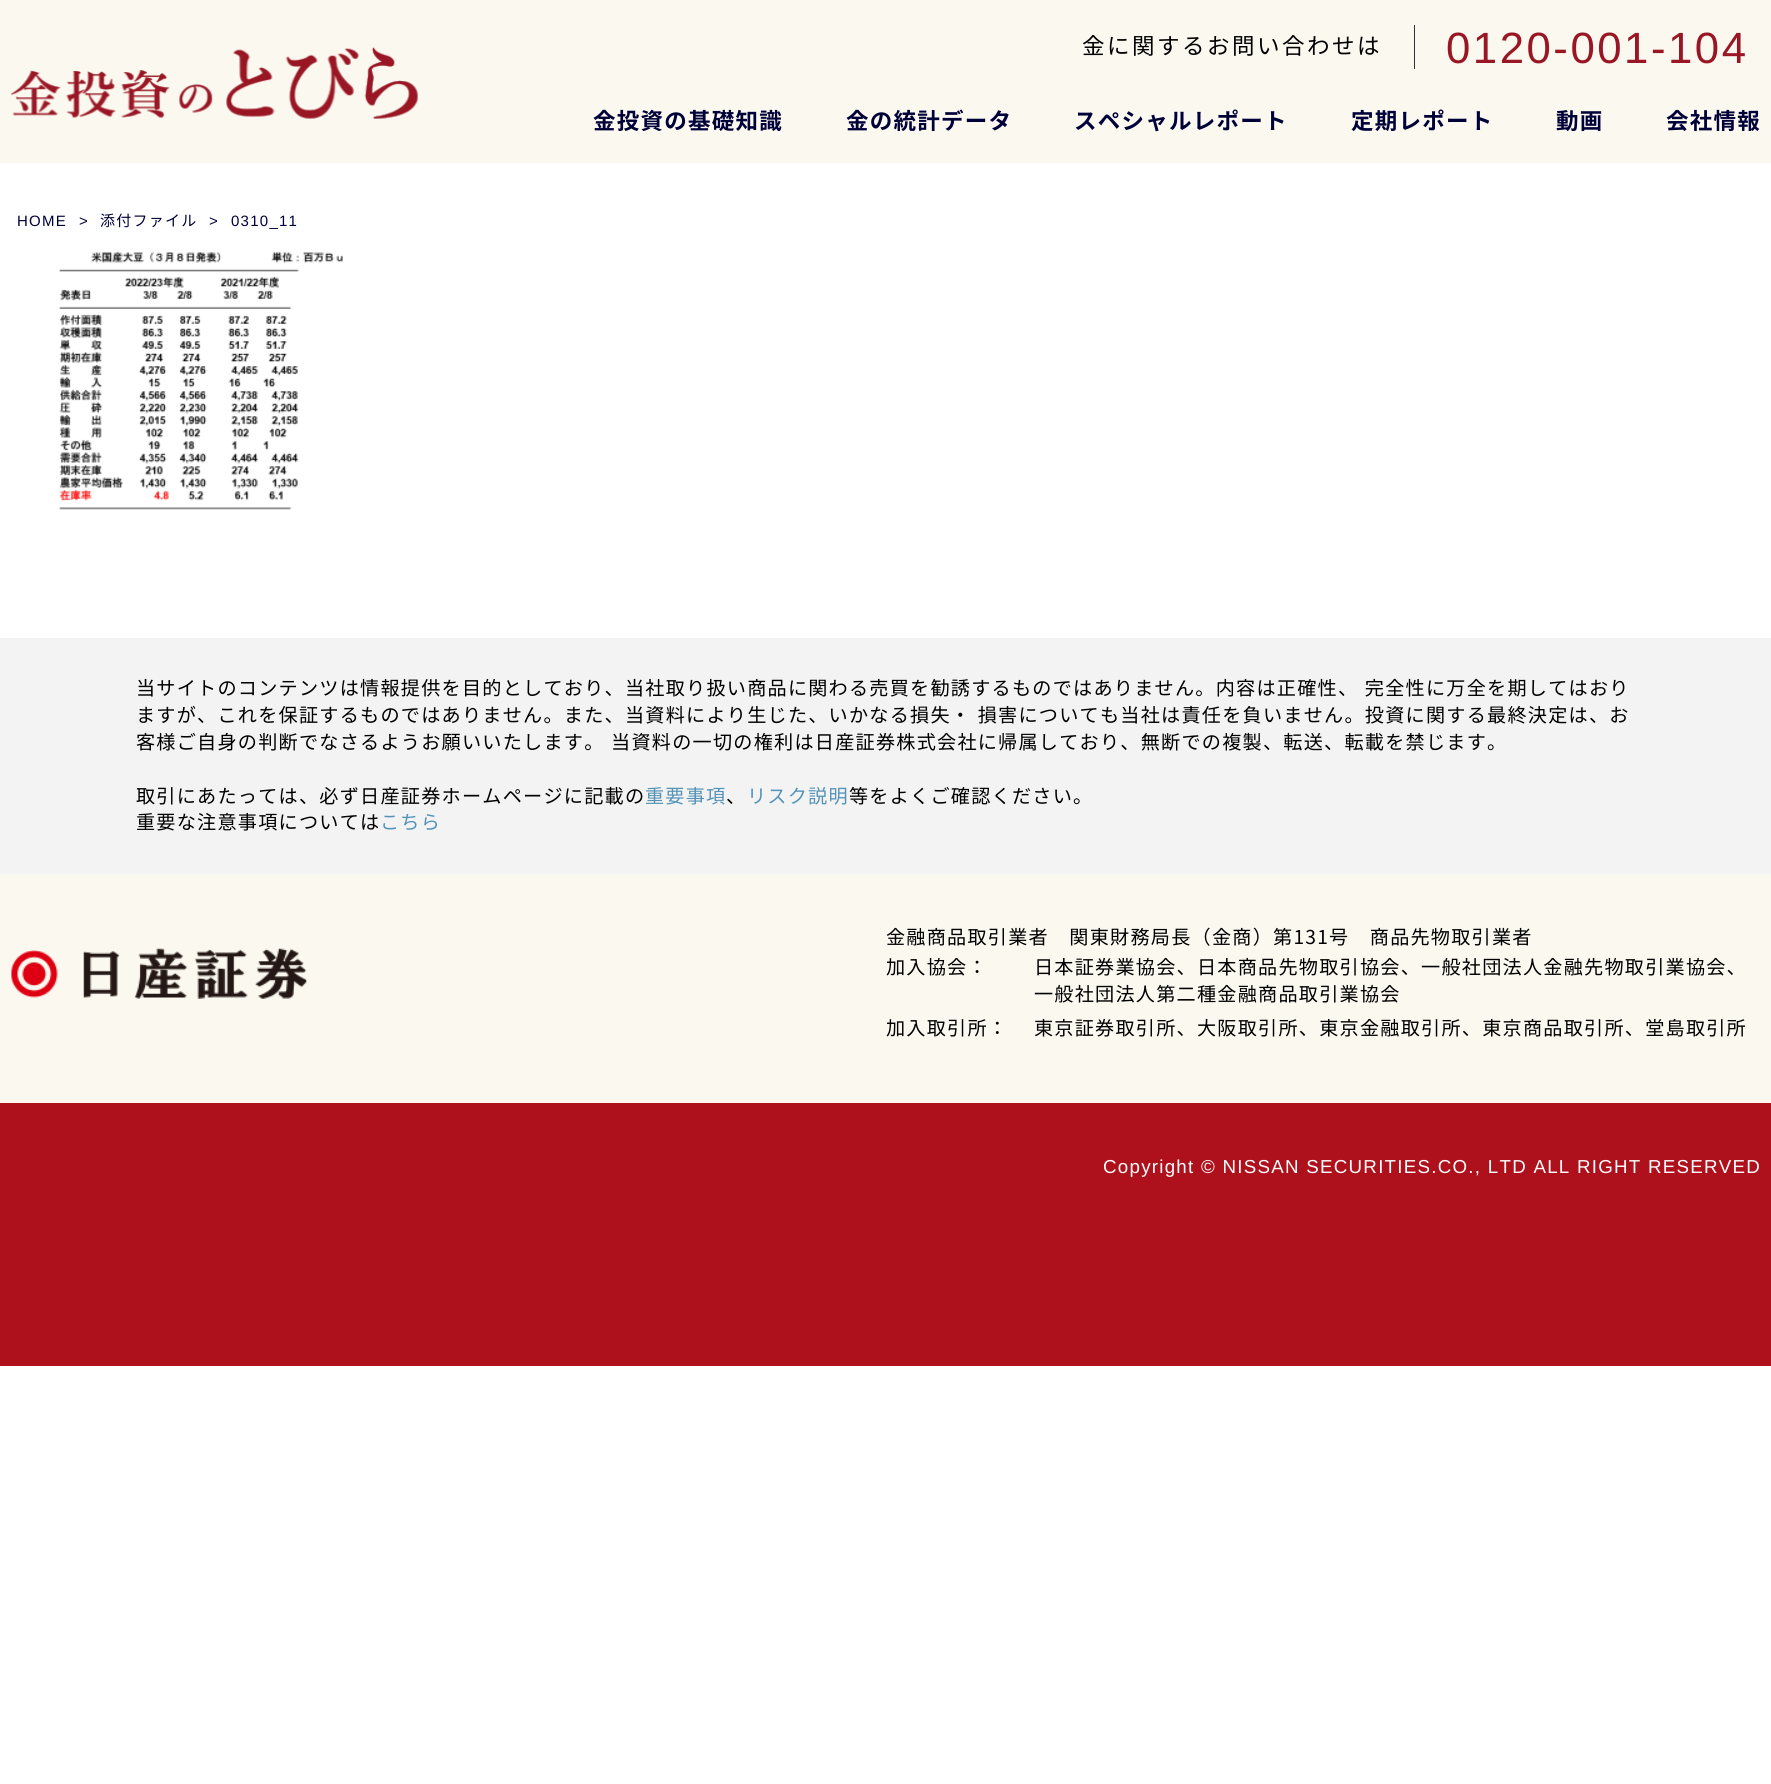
import math
import cairo

surface = cairo.ImageSurface(cairo.FORMAT_RGB24, 1771, 1784)
c = cairo.Context(surface)
options = cairo.FontOptions()
options.set_hint_metrics(cairo.HINT_METRICS_OFF)
options.set_hint_style(cairo.HINT_STYLE_NONE)
c.set_font_options(options)
c.set_miter_limit(4)
def C(code):
 c.set_source_rgb(*(v / 255 for v in bytes.fromhex(code[-6:])))
def F(family, size, italic, bold):
 c.select_font_face(family, cairo.FONT_SLANT_ITALIC if italic else cairo.FONT_SLANT_NORMAL, cairo.FONT_WEIGHT_BOLD if bold else cairo.FONT_WEIGHT_NORMAL)
 c.set_font_size(size)
def L(x, y, s, letter, word):
 c.move_to(x, y)
 for ch in s:
  c.show_text(ch)
  c.rel_move_to(letter + word * (ch == ' '), 0)
def R(x, y, w, h):
 c.rectangle(x, y, w, h)
 c.fill()
def I(path, x, y, w, h):
 c.save()
 c.set_source_surface(cairo.ImageSurface.create_from_png(path), x, y)
 c.rectangle(x, y, w, h)
 c.fill()
 c.restore()
C('ffffff')
c.paint()
C('fbf8f0')
R(0,0,1771,163)
I('1.png',11,47,408,72)
F('Noto Sans JP',22.5,0,0)
C('000000')
L(1082,54,'金に関するお問い合わせは',2.5,0)
C('333333')
R(1414,25,1,44)
F('Liberation Sans',43.75,0,0)
C('991624')
L(1446,63,'0120-001-104',2.5,0)
F('Noto Sans JP',22.5,0,1)
C('000039')
L(593,129,'金投資の基礎知識',1.25,0)
L(846,129,'金の統計データ',1.25,0)
L(1074,129,'スペシャルレポート',1.25,0)
L(1351,129,'定期レポート',1.25,0)
L(1556,129,'動画',1.25,0)
L(1666,129,'会社情報',1.25,0)
F('Liberation Sans',15,0,0)
L(17,226,'HOME',1.25,0)
L(79,226,'>',1.25,0)
F('Noto Sans JP',15,0,0)
L(100,226,'添付ファイル',1.25,0)
F('Liberation Sans',15,0,0)
L(209,226,'>',1.25,0)
L(231,226,'0310_11',1.25,0)
I('2.png',58,251,285,259)
C('f3f3f3')
R(0,638,1771,236)
F('Noto Sans JP',19.12,0,0)
C('000000')
L(136,695,'当サイトのコンテンツは情報提供を目的としており、当社取り扱い商品に関わる売買を勧誘するものではありません。内容は正確性、 完全性に万全を期してはおり',1.25,1)
L(136,722,'ますが、これを保証するものではありません。また、当資料により生じた、いかなる損失・ 損害についても当社は責任を負いません。投資に関する最終決定は、お',1.25,1)
L(136,749,'客様ご自身の判断でなさるようお願いいたします。 当資料の一切の権利は日産証券株式会社に帰属しており、無断での複製、転送、転載を禁じます。',1.25,1)
L(136,803,'取引にあたっては、必ず日産証券ホームページに記載の',1.25,0)
C('5493b7')
L(645,803,'重要事項',1.25,0)
C('000000')
L(726,803,'、',1.25,0)
C('5493b7')
L(747,803,'リスク説明',1.25,0)
C('000000')
L(849,803,'等をよくご確認ください。',1.25,0)
L(136,829,'重要な注意事項については',1.25,0)
C('5493b7')
L(380,829,'こちら',1.25,0)
C('fbf8f0')
R(0,874,1771,229)
I('3.png',11,948,296,51)
C('000000')
L(886,944,'金融商品取引業者　関東財務局長（金商）第131号　商品先物取引業者',1.25,0)
L(886,974,'加入協会：',1.25,0)
L(1034,974,'日本証券業協会、日本商品先物取引協会、一般社団法人金融先物取引業協会、',1.25,0)
L(1034,1001,'一般社団法人第二種金融商品取引業協会',1.25,0)
L(886,1035,'加入取引所：',1.25,0)
L(1034,1035,'東京証券取引所、大阪取引所、東京金融取引所、東京商品取引所、堂島取引所',1.25,0)
C('ae111b')
R(0,1103,1771,263)
F('Liberation Sans',18.75,0,0)
C('ffffff')
L(1103,1173,'Copyright © NISSAN SECURITIES.CO., LTD ALL RIGHT RESERVED',1.25,0)
surface.write_to_png('o.png')
